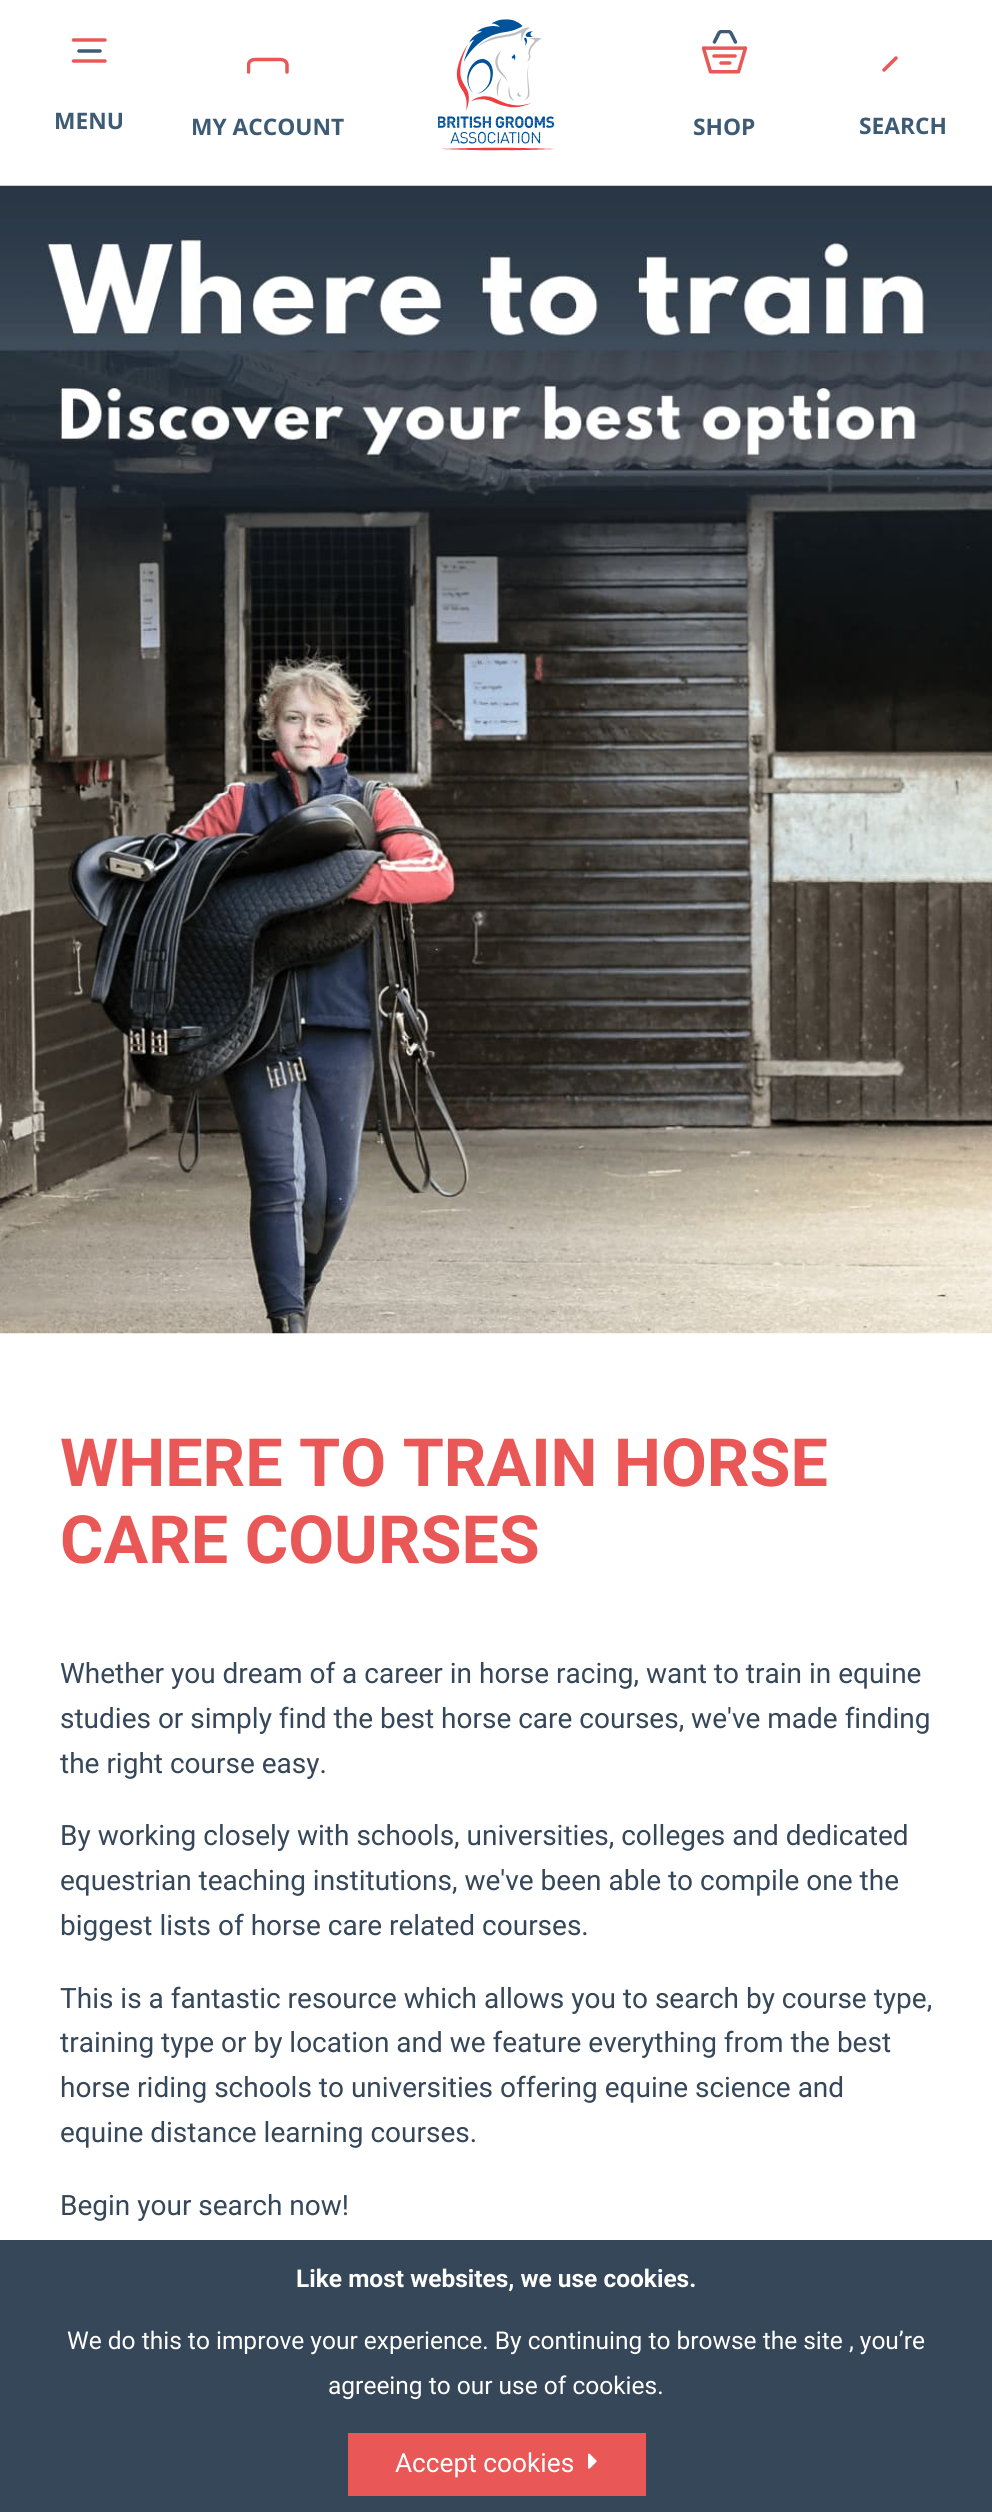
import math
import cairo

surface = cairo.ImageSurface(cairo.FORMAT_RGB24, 992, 2512)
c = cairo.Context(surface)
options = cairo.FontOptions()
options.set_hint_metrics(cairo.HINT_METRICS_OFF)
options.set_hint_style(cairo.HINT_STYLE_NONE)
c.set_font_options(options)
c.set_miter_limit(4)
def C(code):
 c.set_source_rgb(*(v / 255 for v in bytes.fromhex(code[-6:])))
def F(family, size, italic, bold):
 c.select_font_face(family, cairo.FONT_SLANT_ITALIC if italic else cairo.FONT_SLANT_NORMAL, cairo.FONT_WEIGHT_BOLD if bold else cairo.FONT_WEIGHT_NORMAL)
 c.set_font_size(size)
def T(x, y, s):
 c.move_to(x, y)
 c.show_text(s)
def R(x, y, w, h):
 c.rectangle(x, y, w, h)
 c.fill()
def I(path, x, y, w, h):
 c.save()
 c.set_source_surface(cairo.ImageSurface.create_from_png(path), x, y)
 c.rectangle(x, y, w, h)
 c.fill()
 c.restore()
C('ffffff')
c.paint()
c.new_path()
c.move_to(79,51)
c.line_to(100,51)
C('3d5b74')
c.set_line_width(3.5)
c.set_line_cap(cairo.LINE_CAP_ROUND)
c.set_line_join(cairo.LINE_JOIN_ROUND)
c.stroke()
c.new_path()
c.move_to(73.5,40)
c.line_to(105,40)
c.move_to(73.5,61)
c.line_to(105,61)
C('e95857')
c.set_line_join(cairo.LINE_JOIN_MITER)
c.stroke()
F('Open Sans',22.75,0,1)
C('3d5b74')
T(54,129,'MENU')
c.save()
c.rectangle(247,30,42,44)
c.clip()
c.new_path()
c.move_to(287,72)
c.line_to(287,64.5)
c.curve_to(286,59,281,59.5,276.5,59.5)
c.line_to(259,59.5)
c.curve_to(254.5,59.5,249.5,59,248.5,64.5)
c.line_to(248.5,72)
C('e95857')
c.stroke()
c.restore()
T(191,135,'MY ACCOUNT')
I('1.png',438,19,117,132)
I('2.png',702,30,45,44)
T(693,135,'SHOP')
c.new_path()
c.move_to(884,70)
c.line_to(896,58)
C('e95857')
c.stroke()
C('3d5b74')
T(859,134,'SEARCH')
I('3.png',0,185,992,1149)
F('Roboto',66.5,0,1)
C('e95857')
T(60,1486,'WHERE TO TRAIN HORSE')
T(60,1563,'CARE COURSES')
F('Roboto',28,0,0)
C('354759')
T(60,1683,'Whether you dream of a career in horse racing, want to train in equine')
T(60,1728,'studies or simply find the best horse care courses, we\'ve made finding')
T(60,1773,'the right course easy.')
T(60,1845,'By working closely with schools, universities, colleges and dedicated')
T(60,1890,'equestrian teaching institutions, we\'ve been able to compile one the')
T(60,1935,'biggest lists of horse care related courses.')
T(60,2008,'This is a fantastic resource which allows you to search by course type,')
T(60,2052,'training type or by location and we feature everything from the best')
T(60,2097,'horse riding schools to universities offering equine science and')
T(60,2142,'equine distance learning courses.')
T(60,2215,'Begin your search now!')
R(0,2240,992,272)
F('Roboto',24.5,0,1)
C('ffffff')
T(296,2287,'Like most websites, we use cookies.')
F('Roboto',24.5,0,0)
T(67,2349,'We do this to improve your experience. By continuing to browse the site , you’re')
T(328,2394,'agreeing to our use of cookies.')
C('e95757')
R(348,2433,298,63)
F('Roboto',26.25,0,0)
C('ffffff')
T(395,2472,'Accept cookies')
I('4.png',588,2453,9,16)
surface.write_to_png('o.png')
